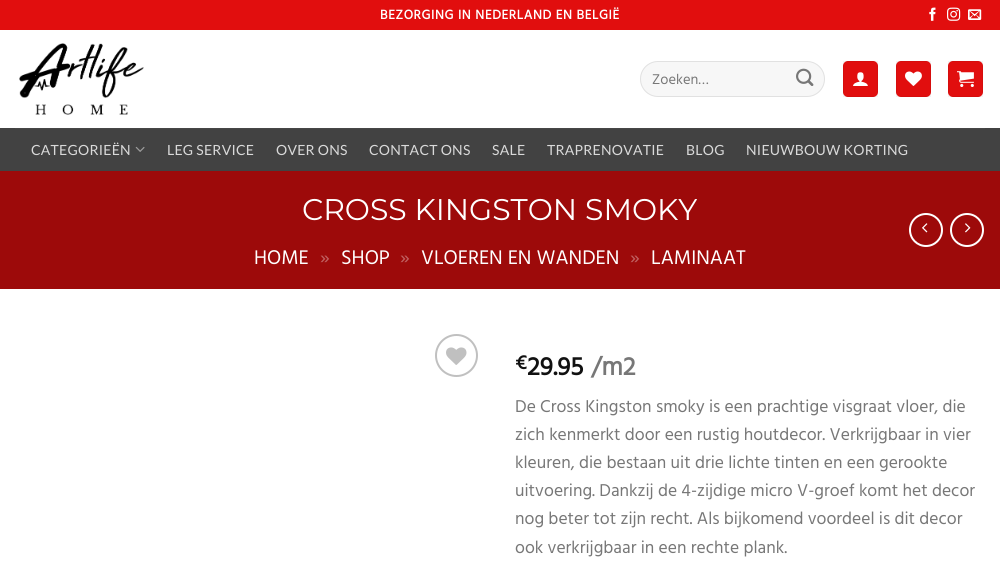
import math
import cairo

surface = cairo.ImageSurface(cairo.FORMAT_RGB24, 1000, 570)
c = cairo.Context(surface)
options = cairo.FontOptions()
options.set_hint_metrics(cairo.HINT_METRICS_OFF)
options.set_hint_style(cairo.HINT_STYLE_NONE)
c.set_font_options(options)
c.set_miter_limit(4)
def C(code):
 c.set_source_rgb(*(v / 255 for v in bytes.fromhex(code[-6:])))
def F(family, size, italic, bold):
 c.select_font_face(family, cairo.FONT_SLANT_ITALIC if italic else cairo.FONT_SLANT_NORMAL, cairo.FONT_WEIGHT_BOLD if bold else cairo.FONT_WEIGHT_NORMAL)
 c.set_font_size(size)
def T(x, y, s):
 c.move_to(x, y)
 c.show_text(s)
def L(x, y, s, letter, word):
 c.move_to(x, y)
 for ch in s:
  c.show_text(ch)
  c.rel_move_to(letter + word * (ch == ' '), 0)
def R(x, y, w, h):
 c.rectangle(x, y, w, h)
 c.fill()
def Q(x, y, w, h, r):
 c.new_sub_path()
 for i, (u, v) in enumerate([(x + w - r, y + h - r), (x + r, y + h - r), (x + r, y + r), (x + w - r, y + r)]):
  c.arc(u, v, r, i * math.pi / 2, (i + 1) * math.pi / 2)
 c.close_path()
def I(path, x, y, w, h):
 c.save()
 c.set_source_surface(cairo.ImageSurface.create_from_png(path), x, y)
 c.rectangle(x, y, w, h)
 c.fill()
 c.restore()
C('ffffff')
c.paint()
C('e10e0e')
R(0,0,1000,30)
F('Hind Vadodara',13.25,0,1)
C('ffffff')
L(380,19,'BEZORGING IN NEDERLAND EN BELGIË',.65,0)
I('1.png',929,7,7,14)
I('2.png',947,7,14,14)
I('3.png',968,9,14,11)
I('4.png',19,43,125,72)
C('f7f7f7')
Q(640,61,185,36,18)
c.fill()
Q(640.5,61.5,184,35,17.5)
c.set_source_rgba(0,0,0,0.09)
c.set_line_width(1)
c.stroke()
F('Hind Vadodara',14.5,0,0)
C('777777')
T(652,84,'Zoeken…')
I('5.png',796,68,18,18)
C('e10e0e')
Q(843,61,35,36,5)
c.fill()
c.rectangle(843.5,61.5,34,35)
c.set_source_rgba(0,0,0,0.05)
c.stroke()
I('6.png',853,72,15,14)
C('e10e0e')
Q(896,61,35,36,5)
c.fill()
c.rectangle(896.5,61.5,34,35)
c.set_source_rgba(0,0,0,0.05)
c.stroke()
I('7.png',905,71,17,15)
C('e10e0e')
Q(948,61,35,36,5)
c.fill()
c.rectangle(948.5,61.5,34,35)
c.set_source_rgba(0,0,0,0.05)
c.stroke()
I('8.png',957,71,17,16)
C('424242')
R(0,128,1000,43)
C('474747')
R(15,128,970,1)
F('Lato',14,0,0)
C('d9d9d9')
L(31,155,'CATEGORIEËN',.25,0)
I('9.png',135,146,10,6)
L(167,155,'LEG SERVICE',.25,0)
L(276,155,'OVER ONS',.25,0)
L(369,155,'CONTACT ONS',.25,0)
L(492,155,'SALE',.25,0)
L(547,155,'TRAPRENOVATIE',.25,0)
L(686,155,'BLOG',.25,0)
L(746,155,'NIEUWBOUW KORTING',.25,0)
C('9d0a0a')
R(0,171,1000,118)
F('Montserrat Thin',29.9,0,0)
C('ffffff')
T(302,220,'CROSS KINGSTON SMOKY')
F('Hind Vadodara',20.25,0,0)
T(254,264,'HOME')
C('bf6060')
T(320,264,'»')
C('ffffff')
T(341,264,'SHOP')
C('bf6060')
T(400,264,'»')
C('ffffff')
T(421,264,'VLOEREN EN WANDEN')
C('bf6060')
T(630,264,'»')
C('ffffff')
T(651,264,'LAMINAAT')
c.new_path()
c.arc(926,230,16,0,2 * math.pi)
c.set_line_width(2)
c.stroke()
I('10.png',922,223,6,10)
c.arc(967,230,16,0,2 * math.pi)
c.stroke()
I('11.png',965,223,6,10)
c.arc(456.5,355.5,20.5,0,2 * math.pi)
C('c0c0c0')
c.stroke()
I('12.png',446,347,21,18)
F('Hind Vadodara',20,0,1)
C('111111')
T(515,369,'€')
F('Hind Vadodara',26,0,1)
T(527,375,'29.95')
C('777777')
T(591,375,'/m2')
F('Hind Vadodara',17.6,0,0)
T(515,412,'De Cross Kingston smoky is een prachtige visgraat vloer, die')
T(515,440,'zich kenmerkt door een rustig houtdecor. Verkrijgbaar in vier')
T(515,468,'kleuren, die bestaan uit drie lichte tinten en een gerookte')
T(515,496,'uitvoering. Dankzij de 4-zijdige micro V-groef komt het decor')
T(515,524,'nog beter tot zijn recht. Als bijkomend voordeel is dit decor')
T(515,553,'ook verkrijgbaar in een rechte plank.')
surface.write_to_png('o.png')
